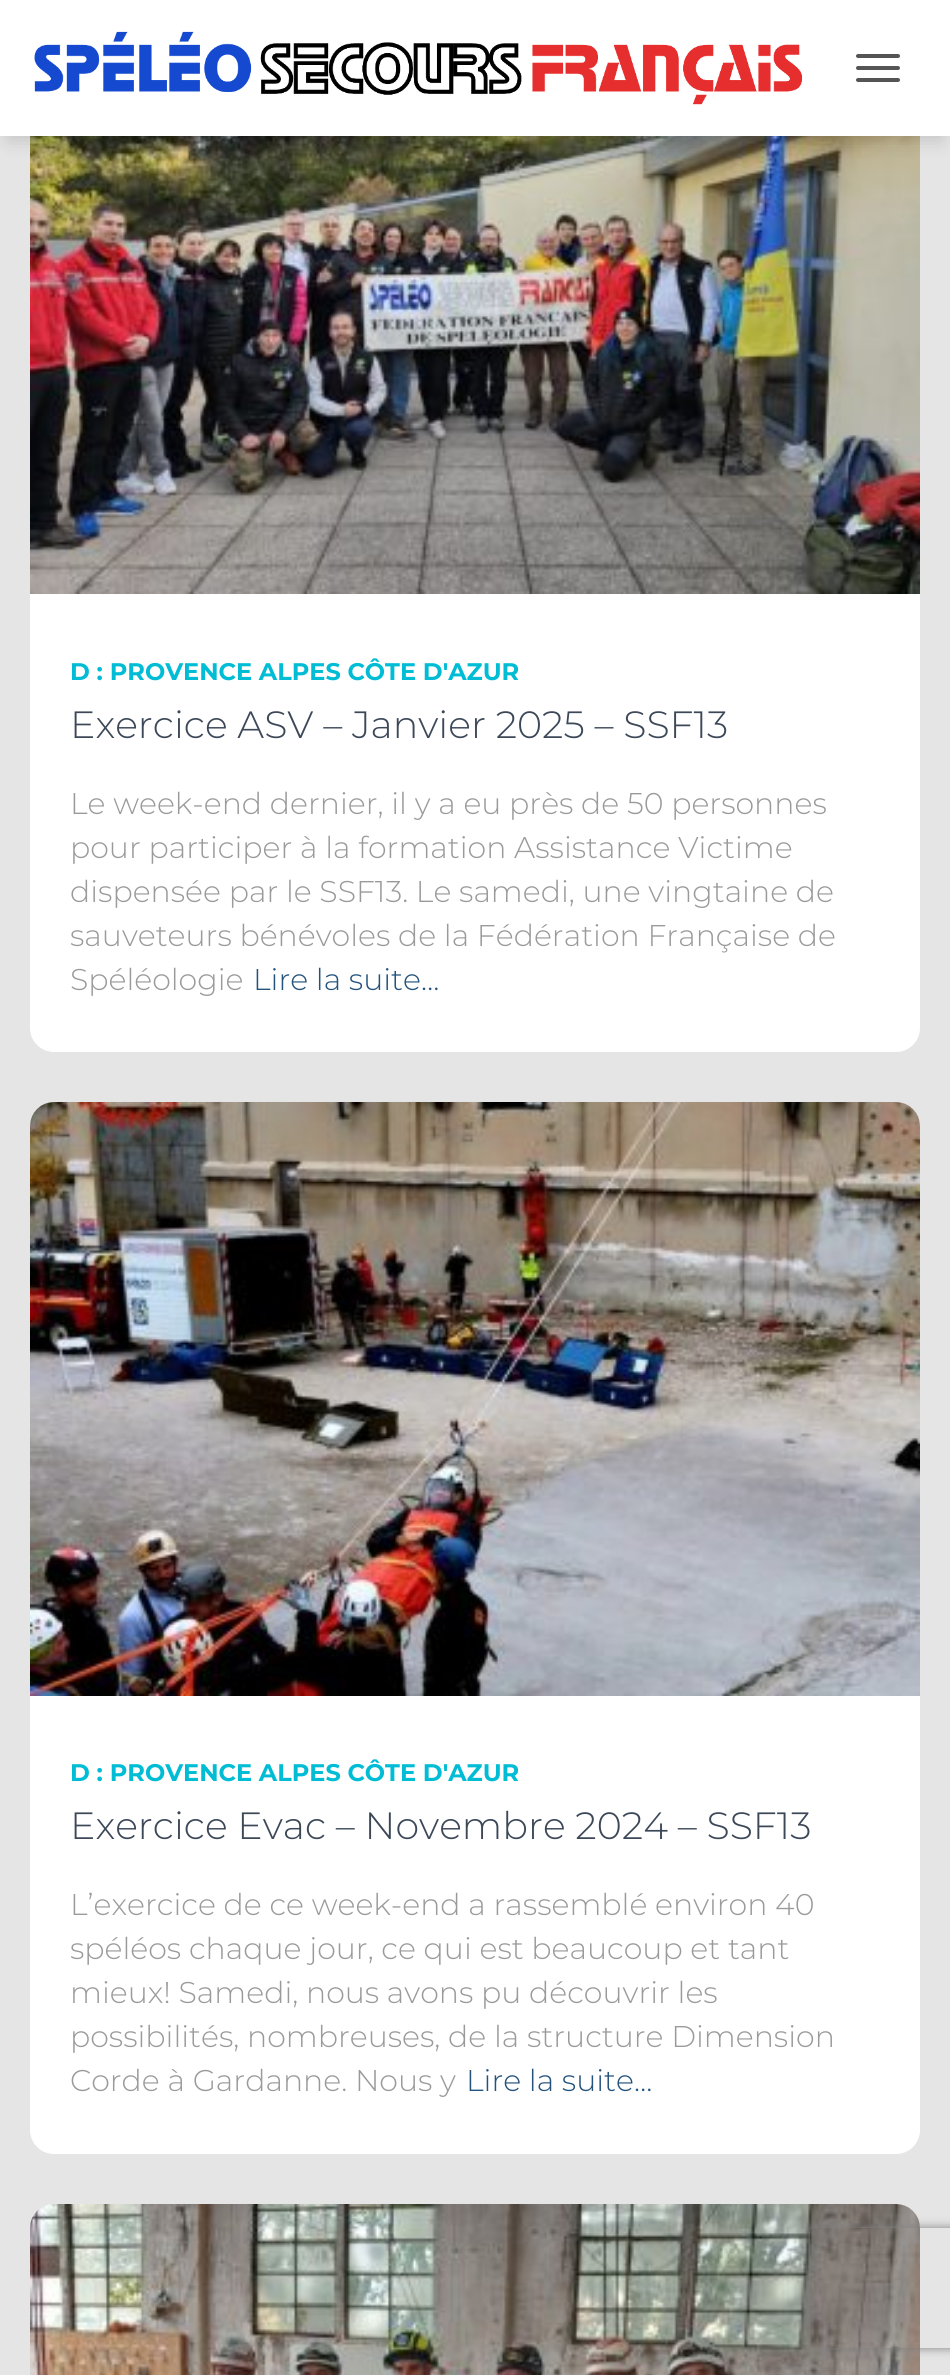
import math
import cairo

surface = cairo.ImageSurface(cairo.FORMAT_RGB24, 950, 2375)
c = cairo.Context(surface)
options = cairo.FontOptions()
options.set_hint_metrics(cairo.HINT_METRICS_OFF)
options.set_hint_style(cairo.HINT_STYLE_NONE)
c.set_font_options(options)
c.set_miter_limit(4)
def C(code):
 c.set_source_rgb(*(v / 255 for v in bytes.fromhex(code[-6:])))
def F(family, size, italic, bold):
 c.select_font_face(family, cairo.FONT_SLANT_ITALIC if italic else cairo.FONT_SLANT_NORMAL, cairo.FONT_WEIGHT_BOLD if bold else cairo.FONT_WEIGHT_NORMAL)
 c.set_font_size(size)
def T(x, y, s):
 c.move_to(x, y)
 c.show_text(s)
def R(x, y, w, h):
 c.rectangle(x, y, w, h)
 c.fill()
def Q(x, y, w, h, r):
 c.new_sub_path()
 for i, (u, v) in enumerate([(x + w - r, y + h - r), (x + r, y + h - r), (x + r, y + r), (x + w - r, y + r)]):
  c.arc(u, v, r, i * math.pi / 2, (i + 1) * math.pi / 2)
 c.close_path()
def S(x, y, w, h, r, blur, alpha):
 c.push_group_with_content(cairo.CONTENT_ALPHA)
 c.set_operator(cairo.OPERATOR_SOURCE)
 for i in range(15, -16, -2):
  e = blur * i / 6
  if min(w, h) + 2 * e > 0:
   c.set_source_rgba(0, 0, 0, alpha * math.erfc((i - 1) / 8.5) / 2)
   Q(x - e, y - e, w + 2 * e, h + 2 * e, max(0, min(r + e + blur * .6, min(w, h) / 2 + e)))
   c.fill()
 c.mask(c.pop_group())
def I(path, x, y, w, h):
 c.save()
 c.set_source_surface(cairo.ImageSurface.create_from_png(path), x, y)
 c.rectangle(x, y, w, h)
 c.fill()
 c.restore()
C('e5e5e5')
c.paint()
C('ffffff')
Q(30,0,890,1052,24)
c.fill()
I('2.png',30,136,890,458)
C('000000')
S(8,20,934,120,0,10,.15)
C('ffffff')
R(0,0,950,136)
I('1.png',34,31,769,74)
C('555555')
Q(856,54,44,4,2)
c.fill()
Q(856,66,44,4,2)
c.fill()
Q(856,78,44,4,2)
c.fill()
F('Montserrat',24,0,1)
C('00bcd4')
T(70,680,'D : PROVENCE ALPES CÔTE D\'AZUR')
F('Montserrat Light',38,0,0)
C('3c4858')
T(70,738,'Exercice ASV – Janvier 2025 – SSF13')
F('Montserrat Light',30,0,0)
C('9a9a9a')
T(70,814,'Le week-end dernier, il y a eu près de 50 personnes')
T(70,858,'pour participer à la formation Assistance Victime')
T(70,902,'dispensée par le SSF13. Le samedi, une vingtaine de')
T(70,946,'sauveteurs bénévoles de la Fédération Française de')
T(70,990,'Spéléologie')
C('23527c')
T(253,990,'Lire la suite…')
C('ffffff')
Q(30,1102,890,1052,24)
c.fill()
I('3.png',30,1102,890,594)
F('Montserrat',24,0,1)
C('00bcd4')
T(70,1781,'D : PROVENCE ALPES CÔTE D\'AZUR')
F('Montserrat Light',38,0,0)
C('3c4858')
T(70,1839,'Exercice Evac – Novembre 2024 – SSF13')
F('Montserrat Light',30,0,0)
C('9a9a9a')
T(70,1915,'L’exercice de ce week-end a rassemblé environ 40')
T(70,1959,'spéléos chaque jour, ce qui est beaucoup et tant')
T(70,2003,'mieux! Samedi, nous avons pu découvrir les')
T(70,2047,'possibilités, nombreuses, de la structure Dimension')
T(70,2091,'Corde à Gardanne. Nous y')
C('23527c')
T(466,2091,'Lire la suite…')
I('4.png',30,2204,890,171)
c.save()
c.set_fill_rule(cairo.FILL_RULE_EVEN_ODD)
c.new_path()
c.move_to(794,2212)
c.line_to(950,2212)
c.line_to(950,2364)
c.line_to(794,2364)
c.close_path()
c.move_to(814,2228)
c.line_to(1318,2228)
c.curve_to(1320,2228,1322,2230,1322,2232)
c.line_to(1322,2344)
c.curve_to(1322,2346,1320,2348,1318,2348)
c.line_to(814,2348)
c.curve_to(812,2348,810,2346,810,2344)
c.line_to(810,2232)
c.curve_to(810,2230,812,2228,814,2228)
c.close_path()
c.clip()
C('808080')
S(810,2228,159,120,4,5,1)
c.restore()
surface.write_to_png('o.png')
